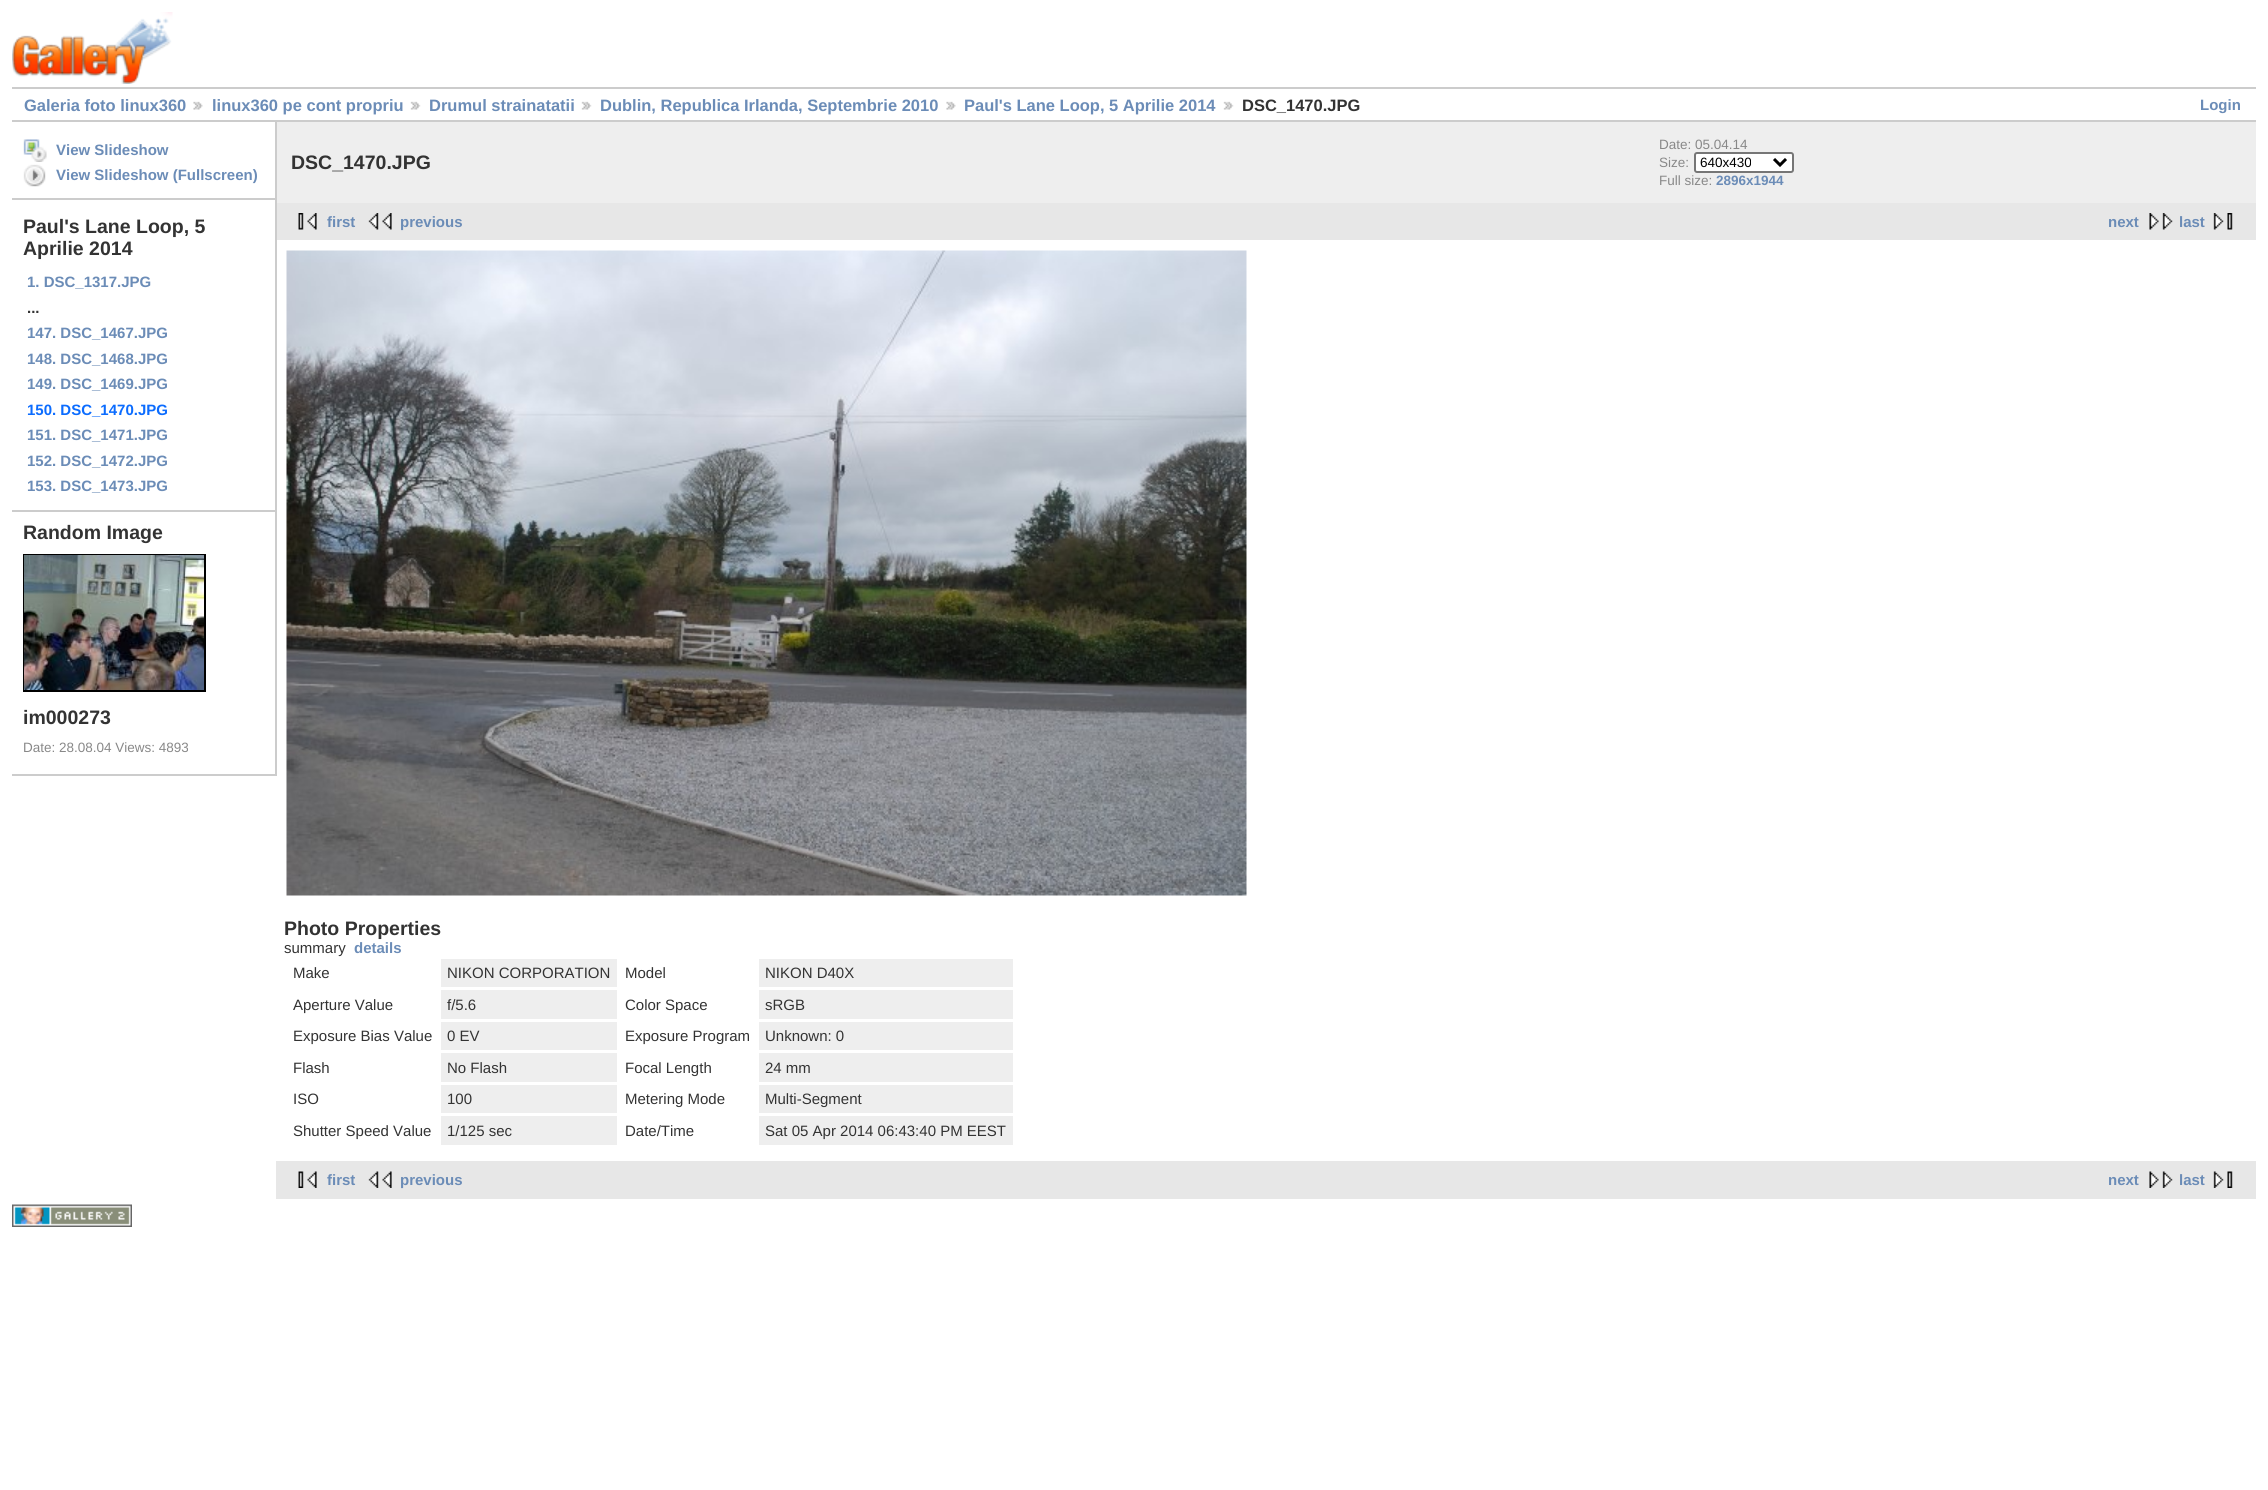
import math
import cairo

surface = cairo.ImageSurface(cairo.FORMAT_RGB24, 2268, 1490)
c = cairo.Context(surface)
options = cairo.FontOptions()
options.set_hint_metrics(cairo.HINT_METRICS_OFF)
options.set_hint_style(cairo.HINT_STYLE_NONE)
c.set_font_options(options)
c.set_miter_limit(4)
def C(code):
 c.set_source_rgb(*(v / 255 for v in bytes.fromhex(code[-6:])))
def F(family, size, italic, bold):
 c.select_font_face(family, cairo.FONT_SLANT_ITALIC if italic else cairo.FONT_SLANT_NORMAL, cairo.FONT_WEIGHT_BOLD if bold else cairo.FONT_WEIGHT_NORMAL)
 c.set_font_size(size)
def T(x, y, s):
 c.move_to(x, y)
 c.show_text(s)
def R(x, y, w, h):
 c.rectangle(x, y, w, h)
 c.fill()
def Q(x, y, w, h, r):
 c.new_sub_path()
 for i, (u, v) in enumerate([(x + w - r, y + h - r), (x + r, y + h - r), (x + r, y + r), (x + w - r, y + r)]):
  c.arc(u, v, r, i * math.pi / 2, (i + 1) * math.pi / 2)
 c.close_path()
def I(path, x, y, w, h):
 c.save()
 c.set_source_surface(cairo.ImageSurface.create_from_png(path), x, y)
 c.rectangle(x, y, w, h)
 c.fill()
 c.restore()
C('ffffff')
c.paint()
I('1.png',12,12,161,72)
C('cccccc')
R(12,87,2244,2)
R(12,120,2244,2)
F('Liberation Sans',16.5,0,1)
C('6b8cb7')
T(24,111,'Galeria foto linux360')
I('2.png',193,101,10,9)
T(212,111,'linux360 pe cont propriu')
I('3.png',410,101,11,9)
T(429,111,'Drumul strainatatii')
I('3.png',581,101,11,9)
T(600,111,'Dublin, Republica Irlanda, Septembrie 2010')
I('2.png',946,101,10,9)
T(964,111,'Paul\'s Lane Loop, 5 Aprilie 2014')
I('3.png',1223,101,11,9)
C('333333')
T(1242,111,'DSC_1470.JPG')
F('Liberation Sans',15,0,1)
C('6b8cb7')
T(2200,110,'Login')
C('cccccc')
R(275,122,2,654)
R(12,198,263,2)
I('4.png',23,139,24,23)
C('6b8cb7')
T(56,155,'View Slideshow')
I('5.png',23,164,23,23)
T(56,180,'View Slideshow (Fullscreen)')
C('cccccc')
R(12,510,263,2)
F('Liberation Sans',19.5,0,1)
C('333333')
T(23,233,'Paul\'s Lane Loop, 5')
T(23,255,'Aprilie 2014')
F('Liberation Sans',15,0,1)
C('6b8cb7')
T(27,287,'1. DSC_1317.JPG')
C('333333')
T(27,313,'...')
C('6b8cb7')
T(27,338,'147. DSC_1467.JPG')
T(27,364,'148. DSC_1468.JPG')
T(27,389,'149. DSC_1469.JPG')
C('0b6cff')
T(27,415,'150. DSC_1470.JPG')
C('6b8cb7')
T(27,440,'151. DSC_1471.JPG')
T(27,466,'152. DSC_1472.JPG')
T(27,491,'153. DSC_1473.JPG')
C('cccccc')
R(12,774,263,2)
F('Liberation Sans',19.5,0,1)
C('333333')
T(23,539,'Random Image')
c.rectangle(24,555,181,136)
C('000000')
c.stroke()
I('6.png',24,555,180,135)
C('333333')
T(23,724,'im000273')
F('Liberation Sans',13.5,0,0)
C('888888')
T(23,752,'Date: 28.08.04 Views: 4893')
C('eeeeee')
R(277,122,1979,81)
F('Liberation Sans',19.5,0,1)
C('333333')
T(291,169,'DSC_1470.JPG')
F('Liberation Sans',13.5,0,0)
C('888888')
T(1659,149,'Date: 05.04.14')
T(1659,167,'Size:')
C('ffffff')
Q(1695,153,98,19,2)
c.fill_preserve()
C('767676')
c.stroke()
c.new_path()
c.move_to(1774,159)
c.line_to(1780,165)
c.line_to(1786,159)
C('000000')
c.set_line_width(3)
c.stroke()
T(1700,167,'640x430')
C('888888')
T(1659,185,'Full size:')
F('Liberation Sans',13.5,0,1)
C('6b8cb7')
T(1716,185,'2896x1944')
C('e7e7e7')
R(277,203,1979,37)
I('7.png',298,213,19,17)
F('Liberation Sans',15,0,1)
C('6b8cb7')
T(327,227,'first')
I('8.png',368,213,24,17)
T(400,227,'previous')
T(2108,227,'next')
I('9.png',2149,213,24,17)
T(2179,227,'last')
I('10.png',2213,213,20,17)
I('11.png',286,250,961,646)
F('Liberation Sans',19.5,0,1)
C('333333')
T(284,935,'Photo Properties')
F('Liberation Sans',15,0,0)
T(284,953,'summary')
F('Liberation Sans',15,0,1)
C('6b8cb7')
T(354,953,'details')
F('Liberation Sans',15,0,0)
C('333333')
T(293,978,'Make')
C('eeeeee')
R(441,959,176,28)
C('333333')
T(447,978,'NIKON CORPORATION')
T(625,978,'Model')
C('eeeeee')
R(759,959,254,28)
C('333333')
T(765,978,'NIKON D40X')
T(293,1010,'Aperture Value')
C('eeeeee')
R(441,990,176,29)
C('333333')
T(447,1010,'f/5.6')
T(625,1010,'Color Space')
C('eeeeee')
R(759,990,254,29)
C('333333')
T(765,1010,'sRGB')
T(293,1041,'Exposure Bias Value')
C('eeeeee')
R(441,1022,176,28)
C('333333')
T(447,1041,'0 EV')
T(625,1041,'Exposure Program')
C('eeeeee')
R(759,1022,254,28)
C('333333')
T(765,1041,'Unknown: 0')
T(293,1073,'Flash')
C('eeeeee')
R(441,1053,176,29)
C('333333')
T(447,1073,'No Flash')
T(625,1073,'Focal Length')
C('eeeeee')
R(759,1053,254,29)
C('333333')
T(765,1073,'24 mm')
T(293,1104,'ISO')
C('eeeeee')
R(441,1085,176,28)
C('333333')
T(447,1104,'100')
T(625,1104,'Metering Mode')
C('eeeeee')
R(759,1085,254,28)
C('333333')
T(765,1104,'Multi-Segment')
T(293,1136,'Shutter Speed Value')
C('eeeeee')
R(441,1116,176,29)
C('333333')
T(447,1136,'1/125 sec')
T(625,1136,'Date/Time')
C('eeeeee')
R(759,1116,254,29)
C('333333')
T(765,1136,'Sat 05 Apr 2014 06:43:40 PM EEST')
C('e7e7e7')
R(276,1161,1980,38)
I('12.png',298,1171,19,17)
F('Liberation Sans',15,0,1)
C('6b8cb7')
T(327,1185,'first')
I('13.png',368,1171,24,17)
T(400,1185,'previous')
T(2108,1185,'next')
I('14.png',2149,1171,24,17)
T(2179,1185,'last')
I('15.png',2213,1171,20,17)
I('16.png',12,1204,120,23)
surface.write_to_png('o.png')
